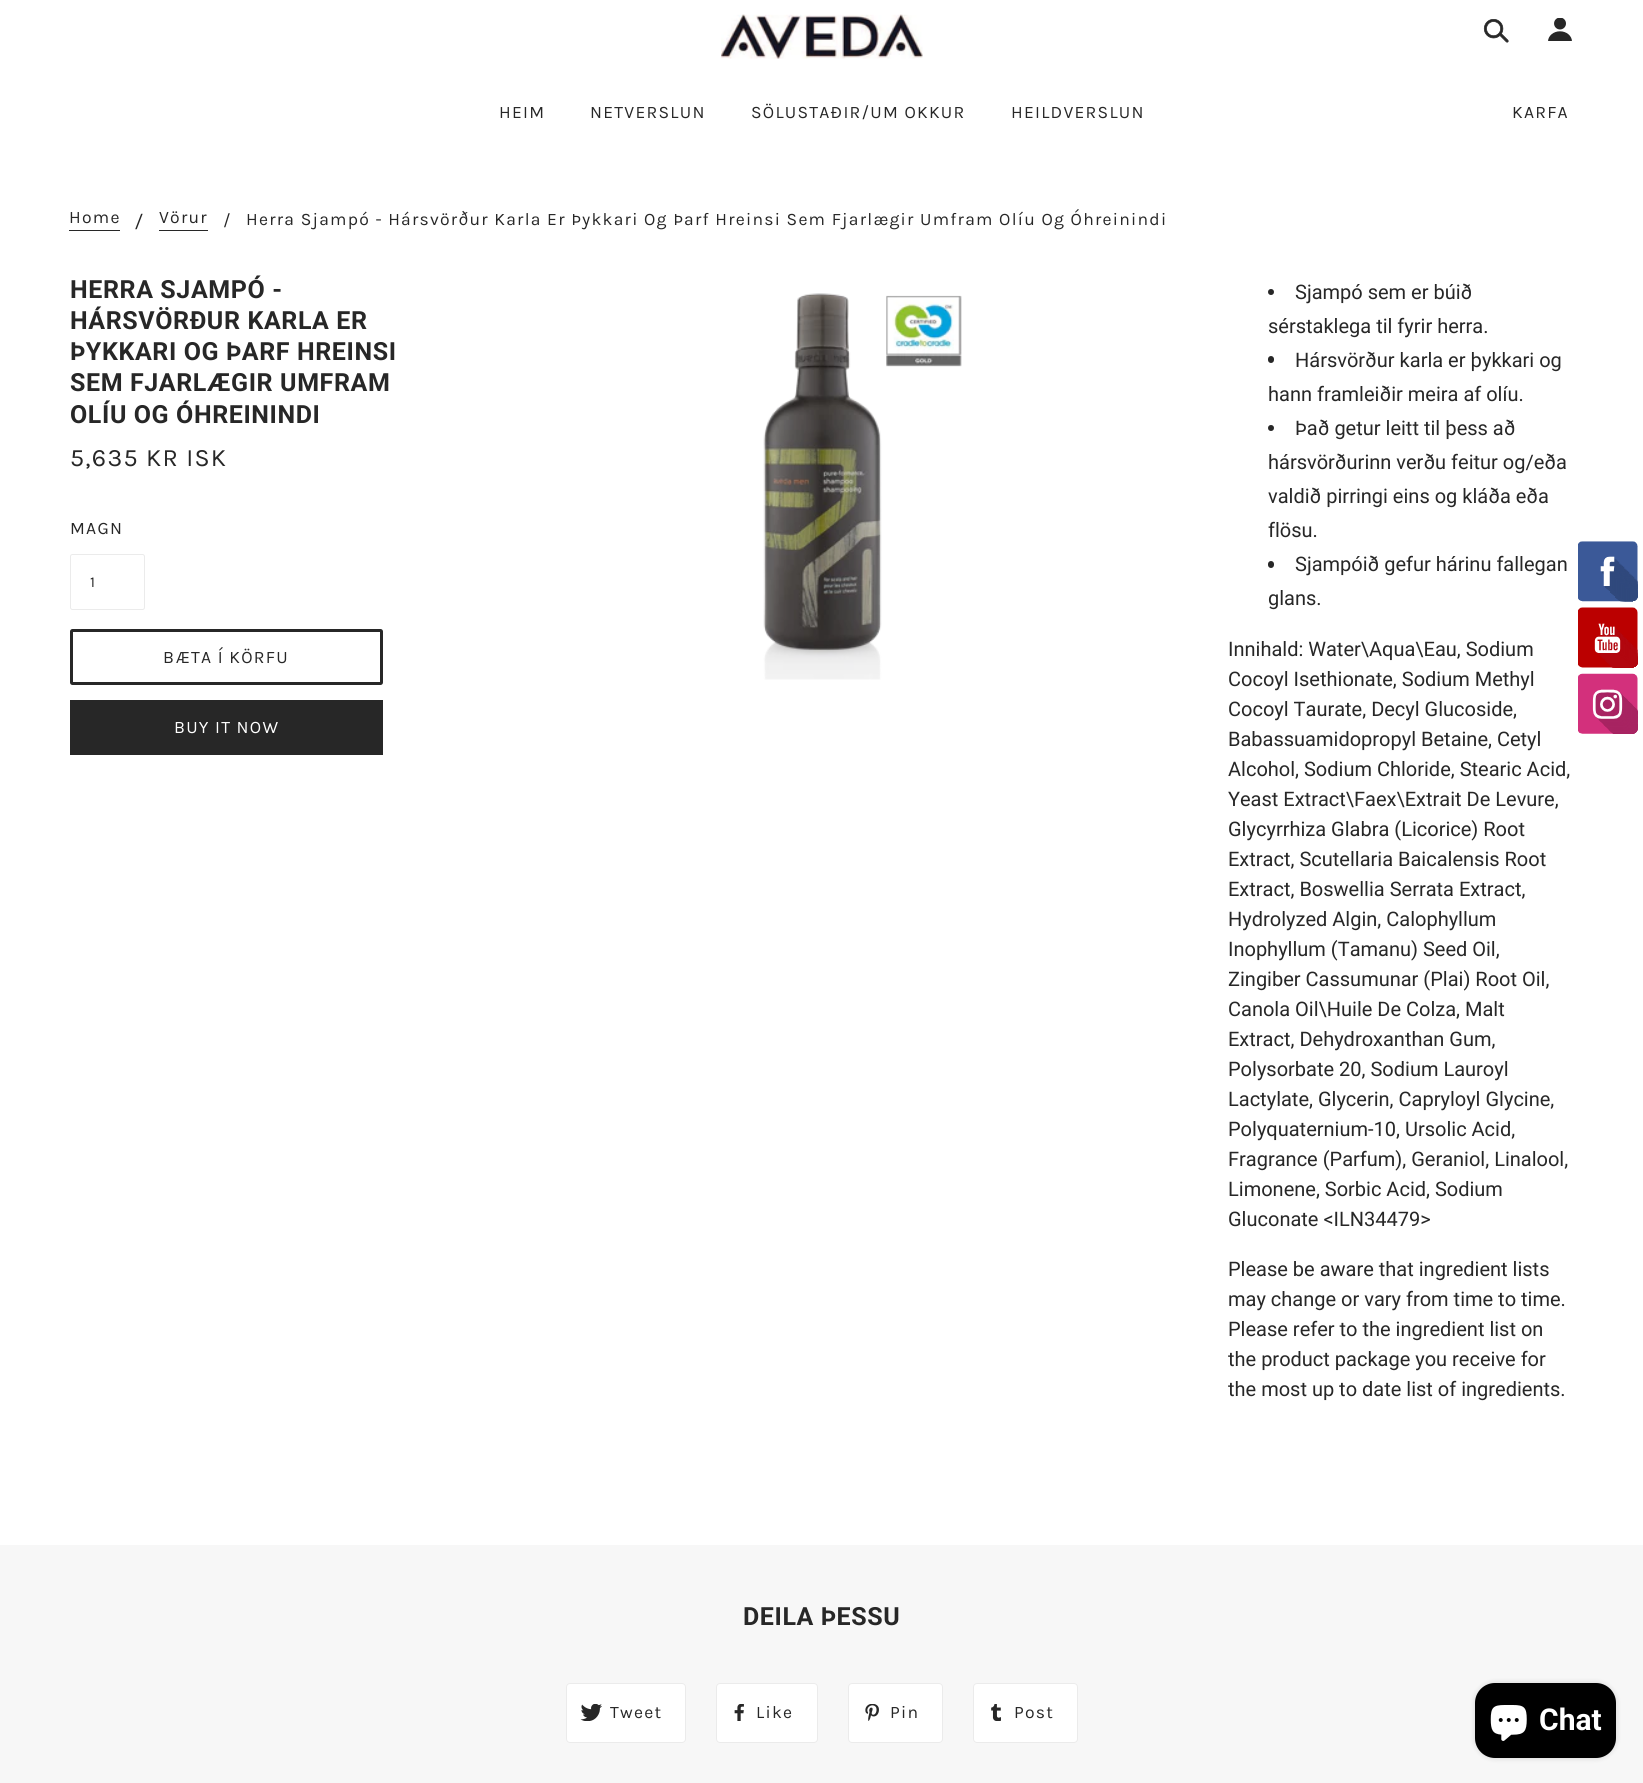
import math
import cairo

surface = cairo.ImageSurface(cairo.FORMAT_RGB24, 1643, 1783)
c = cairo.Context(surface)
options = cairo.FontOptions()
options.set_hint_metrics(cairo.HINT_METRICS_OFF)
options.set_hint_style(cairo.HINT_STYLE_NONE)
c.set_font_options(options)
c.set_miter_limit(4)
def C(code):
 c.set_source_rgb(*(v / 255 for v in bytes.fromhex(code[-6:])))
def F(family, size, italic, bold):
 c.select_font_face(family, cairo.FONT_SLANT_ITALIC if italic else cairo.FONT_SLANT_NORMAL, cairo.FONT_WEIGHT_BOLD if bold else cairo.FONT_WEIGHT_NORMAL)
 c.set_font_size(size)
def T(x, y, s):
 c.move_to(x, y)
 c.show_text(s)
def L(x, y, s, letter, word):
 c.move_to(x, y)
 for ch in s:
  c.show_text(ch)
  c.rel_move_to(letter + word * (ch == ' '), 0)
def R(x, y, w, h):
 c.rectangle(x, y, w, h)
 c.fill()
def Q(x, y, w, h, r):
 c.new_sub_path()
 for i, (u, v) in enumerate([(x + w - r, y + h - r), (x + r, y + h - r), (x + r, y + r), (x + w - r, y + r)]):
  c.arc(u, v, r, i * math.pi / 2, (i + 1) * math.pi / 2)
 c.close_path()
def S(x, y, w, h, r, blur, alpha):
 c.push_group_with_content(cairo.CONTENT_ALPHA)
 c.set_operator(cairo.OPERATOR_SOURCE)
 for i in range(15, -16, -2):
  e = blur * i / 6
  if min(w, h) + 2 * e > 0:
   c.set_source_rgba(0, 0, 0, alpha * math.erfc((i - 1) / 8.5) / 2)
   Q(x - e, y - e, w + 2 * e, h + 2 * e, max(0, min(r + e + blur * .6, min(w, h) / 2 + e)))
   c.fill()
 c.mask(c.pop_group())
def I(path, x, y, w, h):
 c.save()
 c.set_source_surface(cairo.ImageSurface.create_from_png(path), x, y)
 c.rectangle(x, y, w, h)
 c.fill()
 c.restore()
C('ffffff')
c.paint()
I('1.png',721,14,202,45)
I('2.png',1483,19,26,24)
I('3.png',1548,18,24,23)
F('Karla',17.5,0,0)
C('272727')
L(499,118,'HEIM',1.25,0)
L(590,118,'NETVERSLUN',1.25,0)
L(751,118,'SÖLUSTAÐIR/UM OKKUR',1.25,0)
L(1011,118,'HEILDVERSLUN',1.25,0)
L(1512,118,'KARFA',1.25,0)
L(69,223,'Home',1.25,0)
R(69,230,51,1)
F('Roboto',20,0,0)
T(135,228,'/')
F('Karla',17.5,0,0)
L(159,223,'Vörur',1.25,0)
R(159,230,49,1)
L(223,226,'/',1.25,0)
L(246,225,'Herra Sjampó - Hársvörður Karla Er Þykkari Og Þarf Hreinsi Sem Fjarlægir Umfram Olíu Og Óhreinindi',1.25,0)
F('Roboto',25,0,1)
L(70,298,'HERRA SJAMPÓ -',.6,0)
L(70,329,'HÁRSVÖRÐUR KARLA ER',.6,0)
L(70,360,'ÞYKKARI OG ÞARF HREINSI',.6,0)
L(70,391,'SEM FJARLÆGIR UMFRAM',.6,0)
L(70,423,'OLÍU OG ÓHREININDI',.6,0)
I('4.png',763,293,199,387)
c.arc(1271,292,3,0,2 * math.pi)
c.fill()
F('Roboto',20,0,0)
T(1295,299,'Sjampó sem er búið')
T(1268,333,'sérstaklega til fyrir herra.')
Q(1268,356,6,7,3)
c.fill()
T(1295,367,'Hársvörður karla er þykkari og')
T(1268,401,'hann framleiðir meira af olíu.')
c.new_path()
c.arc(1271,428,3,0,2 * math.pi)
c.fill()
T(1295,435,'Það getur leitt til þess að')
T(1268,469,'hársvörðurinn verðu feitur og/eða')
T(1268,503,'valdið pirringi eins og kláða eða')
T(1268,537,'flösu.')
Q(1268,561,6,7,3)
c.fill()
T(1295,571,'Sjampóið gefur hárinu fallegan')
T(1268,605,'glans.')
T(1228,656,'Innihald: Water\\Aqua\\Eau, Sodium')
T(1228,686,'Cocoyl Isethionate, Sodium Methyl')
T(1228,716,'Cocoyl Taurate, Decyl Glucoside,')
T(1228,746,'Babassuamidopropyl Betaine, Cetyl')
T(1228,776,'Alcohol, Sodium Chloride, Stearic Acid,')
T(1228,806,'Yeast Extract\\Faex\\Extrait De Levure,')
T(1228,836,'Glycyrrhiza Glabra (Licorice) Root')
T(1228,866,'Extract, Scutellaria Baicalensis Root')
T(1228,896,'Extract, Boswellia Serrata Extract,')
T(1228,926,'Hydrolyzed Algin, Calophyllum')
T(1228,956,'Inophyllum (Tamanu) Seed Oil,')
T(1228,986,'Zingiber Cassumunar (Plai) Root Oil,')
T(1228,1016,'Canola Oil\\Huile De Colza, Malt')
T(1228,1046,'Extract, Dehydroxanthan Gum,')
T(1228,1076,'Polysorbate 20, Sodium Lauroyl')
T(1228,1106,'Lactylate, Glycerin, Capryloyl Glycine,')
T(1228,1136,'Polyquaternium-10, Ursolic Acid,')
T(1228,1166,'Fragrance (Parfum), Geraniol, Linalool,')
T(1228,1196,'Limonene, Sorbic Acid, Sodium')
T(1228,1226,'Gluconate <ILN34479>')
T(1228,1276,'Please be aware that ingredient lists')
T(1228,1306,'may change or vary from time to time.')
T(1228,1336,'Please refer to the ingredient list on')
T(1228,1366,'the product package you receive for')
T(1228,1396,'the most up to date list of ingredients.')
F('Karla',25,0,0)
L(70,466,'5,635 KR ISK',1.25,0)
F('Karla',17.5,0,0)
L(70,534,'MAGN',1.25,0)
Q(70.5,554.5,74,55,2)
C('ebebeb')
c.set_line_width(1)
c.stroke()
F('Karla',15,0,0)
C('272727')
L(90,587,'1',1,0)
Q(71.5,630.5,310,53,1)
c.set_line_width(3)
c.stroke()
F('Karla',17.5,0,0)
L(163,663,'BÆTA Í KÖRFU',1.25,0)
R(70,700,313,55)
C('ffffff')
L(174,733,'BUY IT NOW',1.25,0)
C('f7f7f7')
R(0,1545,1643,238)
F('Roboto',25,0,1)
C('272727')
L(743,1625,'DEILA ÞESSU',.6,0)
C('ffffff')
Q(566.5,1683.5,119,59,3.5)
c.fill_preserve()
C('ebebeb')
c.set_line_width(1)
c.stroke()
I('5.png',580,1704,22,17)
F('Karla',17.5,0,0)
C('272727')
L(610,1718,'Tweet',1.25,0)
C('ffffff')
Q(716.5,1683.5,101,59,3.5)
c.fill_preserve()
C('ebebeb')
c.stroke()
I('6.png',734,1704,10,17)
C('272727')
L(756,1718,'Like',1.25,0)
C('ffffff')
Q(848.5,1683.5,94,59,3.5)
c.fill_preserve()
C('ebebeb')
c.stroke()
I('7.png',865,1704,14,17)
C('272727')
L(890,1718,'Pin',1.25,0)
C('ffffff')
Q(973.5,1683.5,104,59,3.5)
c.fill_preserve()
C('ebebeb')
c.stroke()
I('8.png',991,1704,10,17)
C('272727')
L(1014,1718,'Post',1.25,0)
I('9.png',1578,541,60,193)
C('000000')
S(1475,1683,141,75,20,3,.15)
C('000000')
Q(1475,1683,141,75,20)
c.fill()
I('10.png',1490,1705,37,36)
F('Roboto',30,0,1)
C('ffffff')
T(1539,1730,'Chat')
surface.write_to_png('o.png')
